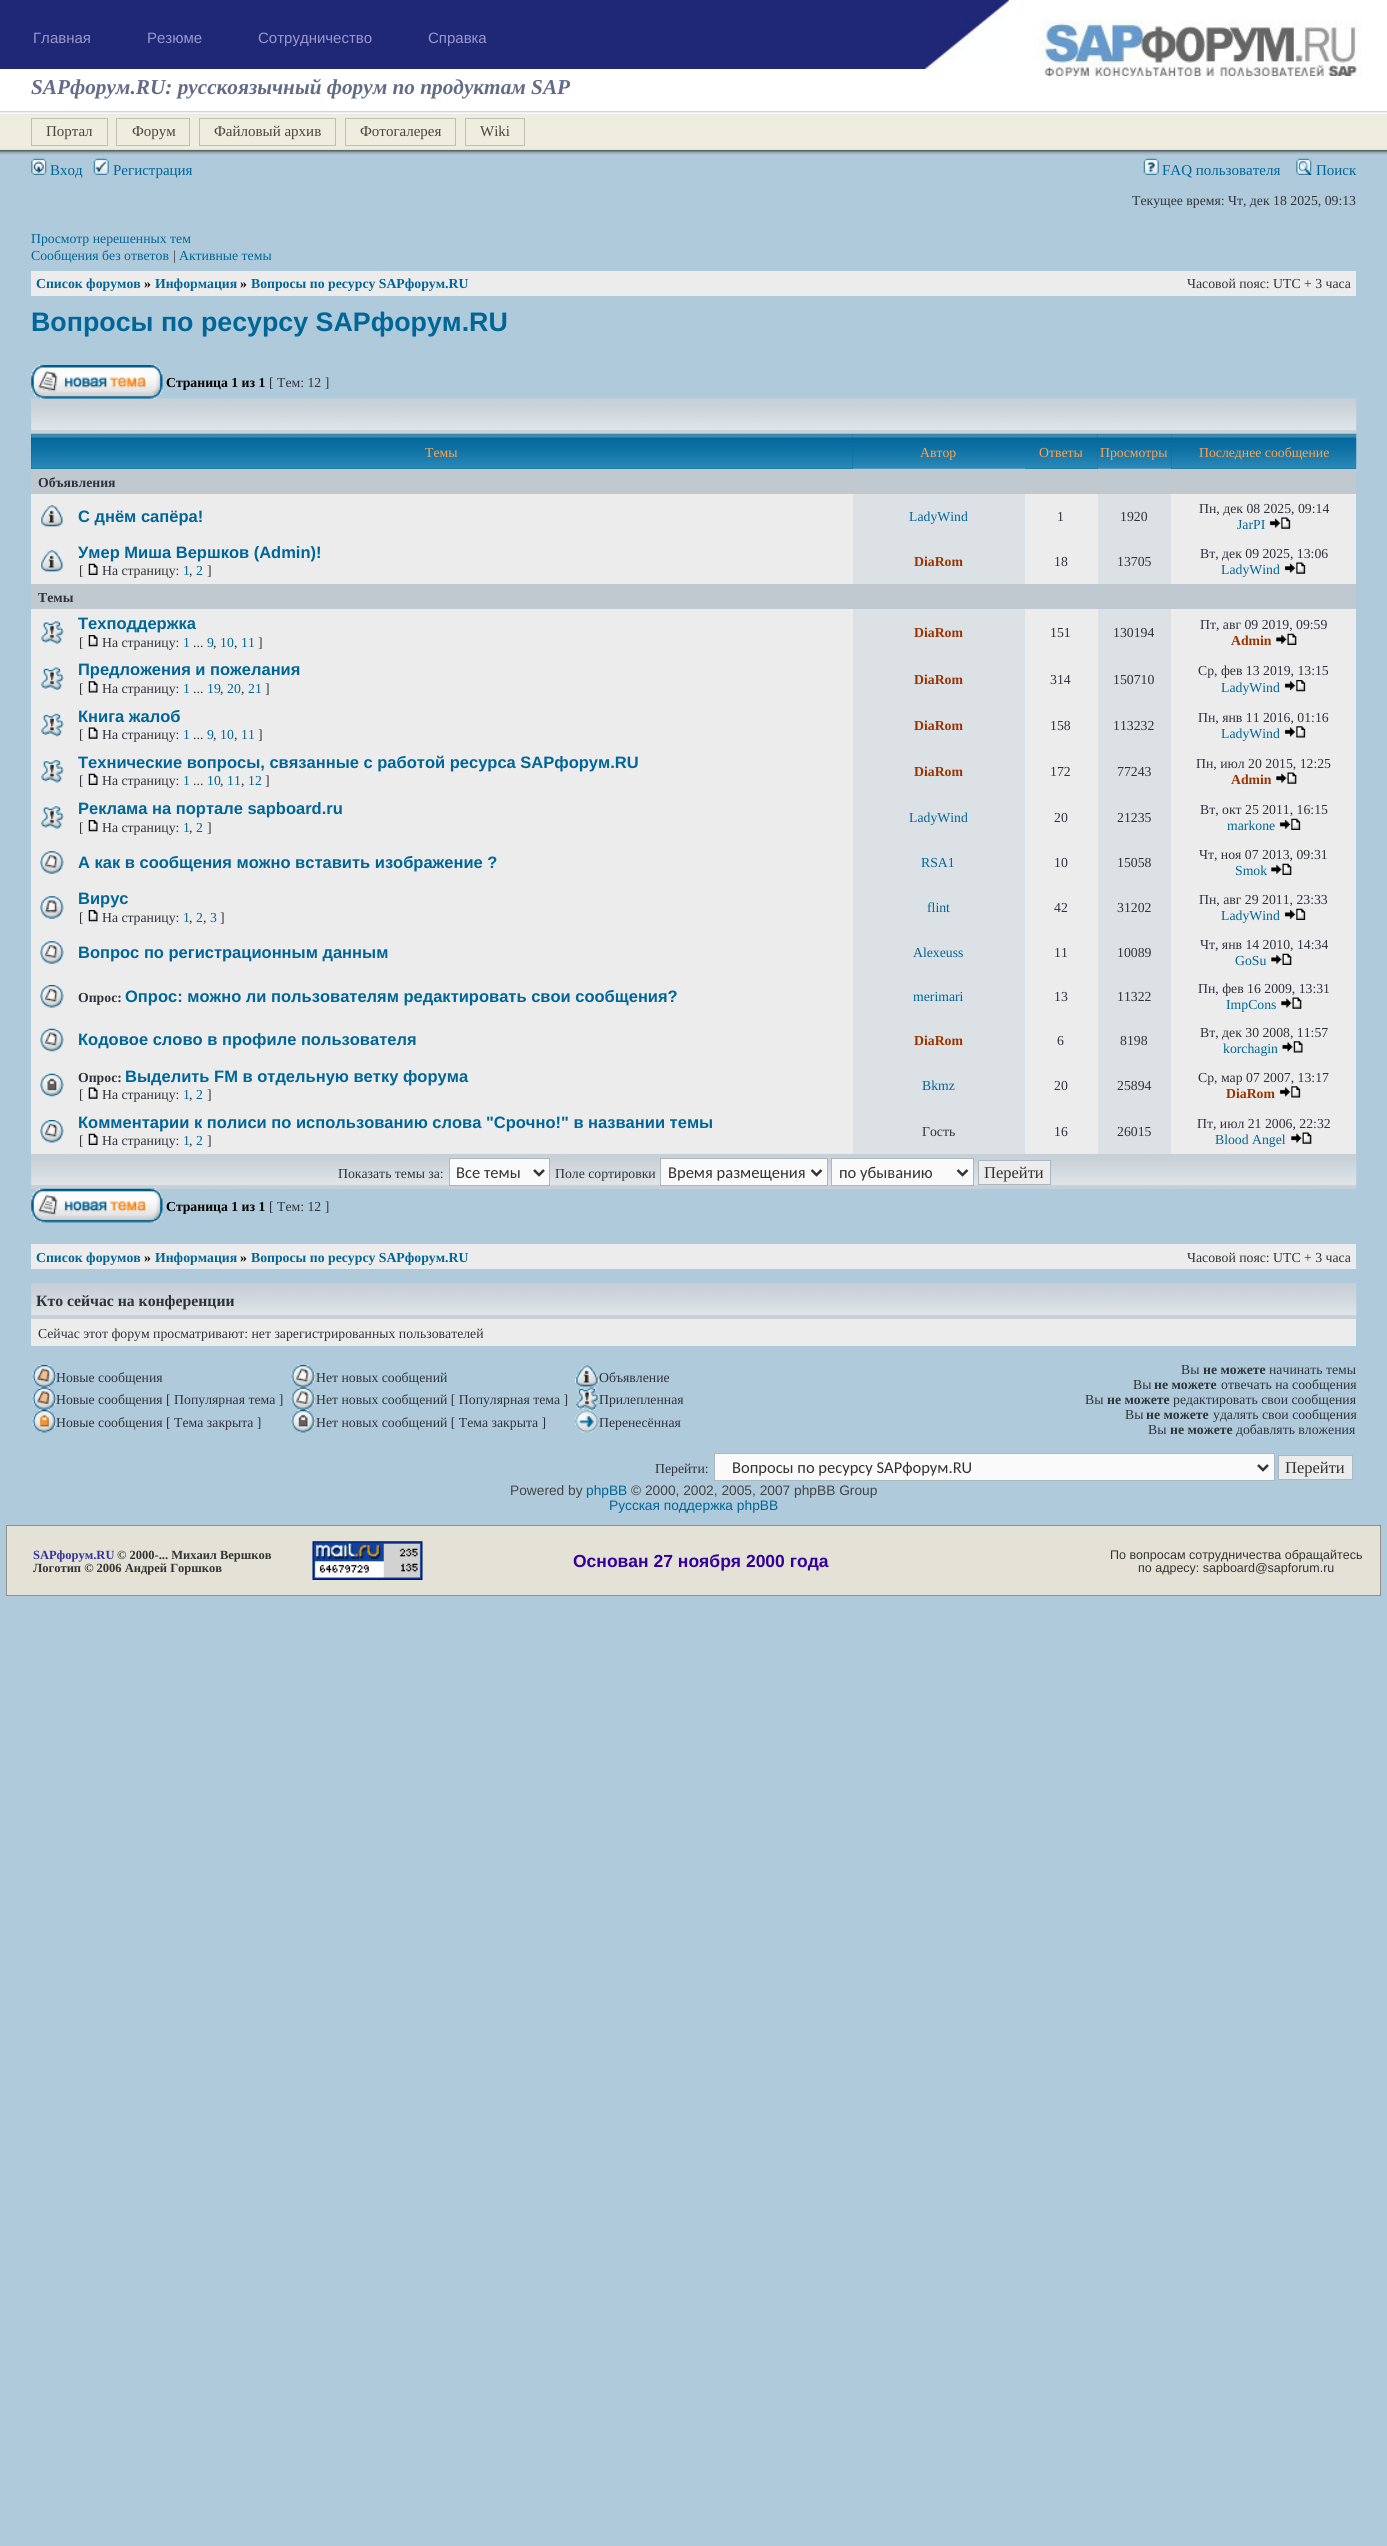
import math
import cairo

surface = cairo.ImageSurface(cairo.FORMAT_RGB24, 1387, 2546)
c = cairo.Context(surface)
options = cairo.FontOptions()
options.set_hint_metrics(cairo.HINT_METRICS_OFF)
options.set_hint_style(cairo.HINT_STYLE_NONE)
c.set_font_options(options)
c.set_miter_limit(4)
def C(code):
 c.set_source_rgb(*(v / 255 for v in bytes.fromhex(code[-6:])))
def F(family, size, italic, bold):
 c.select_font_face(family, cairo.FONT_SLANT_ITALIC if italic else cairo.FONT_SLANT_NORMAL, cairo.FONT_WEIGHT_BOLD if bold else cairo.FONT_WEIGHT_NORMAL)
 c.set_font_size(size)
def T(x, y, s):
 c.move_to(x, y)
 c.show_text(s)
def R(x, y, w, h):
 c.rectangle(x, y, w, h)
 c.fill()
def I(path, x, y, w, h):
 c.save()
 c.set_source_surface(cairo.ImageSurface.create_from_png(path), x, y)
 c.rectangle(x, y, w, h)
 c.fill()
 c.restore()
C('afcbdb')
c.paint()
C('1f2777')
R(0,0,925,69)
F('Liberation Sans',15,0,0)
C('9999cc')
T(33,43,'Главная')
T(147,43,'Резюме')
T(258,43,'Сотрудничество')
T(428,43,'Справка')
C('ffffff')
R(0,69,925,7)
R(925,0,462,76)
I('1.png',925,0,84,69)
I('2.png',1033,20,329,56)
R(0,76,1387,35)
F('Liberation Serif',21.25,1,1)
C('626c87')
T(31,94,'SAPфорум.RU: русскоязычный форум по продуктам SAP')
I('3.png',0,111,1387,44)
C('efedde')
R(32,138,75,7)
c.rectangle(31.5,118.5,76,27)
C('c2c0b2')
c.set_line_width(1)
c.stroke()
F('Liberation Serif',15,0,0)
C('47463e')
T(46,136,'Портал')
C('efedde')
R(117,138,72,7)
c.rectangle(116.5,118.5,73,27)
C('c2c0b2')
c.stroke()
C('47463e')
T(132,136,'Форум')
C('efedde')
R(200,138,135,7)
c.rectangle(199.5,118.5,136,27)
C('c2c0b2')
c.stroke()
C('47463e')
T(214,136,'Файловый архив')
C('efedde')
R(346,138,109,7)
c.rectangle(345.5,118.5,110,27)
C('c2c0b2')
c.stroke()
C('47463e')
T(360,136,'Фотогалерея')
C('efedde')
R(466,138,58,7)
c.rectangle(465.5,118.5,59,27)
C('c2c0b2')
c.stroke()
C('47463e')
T(480,136,'Wiki')
I('4.png',31,158,16,17)
C('006597')
T(50,175,'Вход')
I('5.png',93,158,16,17)
T(113,175,'Регистрация')
I('6.png',1143,158,16,17)
T(1162,175,'FAQ пользователя')
I('7.png',1296,158,16,17)
T(1316,175,'Поиск')
F('Liberation Serif',13.75,0,0)
C('30323a')
T(1132,205,'Текущее время: Чт, дек 18 2025, 09:13')
C('006597')
T(31,243,'Просмотр нерешенных тем')
T(31,260,'Сообщения без ответов')
C('30323a')
T(173,260,'|')
C('006597')
T(179,260,'Активные темы')
C('ececec')
R(31,271,1325,25)
F('Liberation Serif',13.75,0,1)
C('006597')
T(36,288,'Список форумов')
C('000000')
T(144,288,'»')
C('006597')
T(155,288,'Информация')
C('000000')
T(240,288,'»')
C('006597')
T(251,288,'Вопросы по ресурсу SAPфорум.RU')
F('Liberation Serif',13.75,0,0)
C('30323a')
T(1187,288,'Часовой пояс: UTC + 3 часа')
F('Liberation Sans',26.8,0,1)
C('006597')
T(31,331,'Вопросы по ресурсу SAPфорум.RU')
C('c7d0d7')
R(31,399,1325,35)
I('9.png',31,398,1326,36)
I('8.png',31,365,132,34)
F('Liberation Serif',13.75,0,1)
C('000000')
T(166,387,'Страница 1 из 1')
F('Liberation Serif',13.75,0,0)
C('30323a')
T(269,387,'[ Тем: 12 ]')
C('006699')
R(31,434,822,35)
I('10.png',31,433,822,36)
C('ffa34f')
T(425,457,'Темы')
I('11.png',852,433,173,36)
T(920,457,'Автор')
C('006699')
R(1025,434,73,35)
I('12.png',1025,433,73,36)
C('ffa34f')
T(1039,457,'Ответы')
I('13.png',1097,433,75,36)
T(1100,457,'Просмотры')
C('006699')
R(1171,434,185,35)
I('14.png',1171,433,186,36)
C('ffa34f')
T(1199,457,'Последнее сообщение')
C('c0c8d0')
R(31,469,1325,25)
F('Liberation Serif',13.75,0,1)
C('30323a')
T(38,487,'Объявления')
C('ececec')
R(31,494,822,44)
I('15.png',40,505,24,22)
R(1171,494,185,90)
F('Liberation Serif',13.75,0,0)
C('30323a')
T(1199,513,'Пн, дек 08 2025, 09:14')
C('006597')
T(1237,529,'JarPI')
I('16.png',1269,517,22,12)
F('Liberation Sans',16.5,0,1)
T(78,522,'С днём сапёра!')
C('dce1e5')
R(853,494,172,90)
F('Liberation Serif',13.75,0,0)
C('006597')
T(909,521,'LadyWind')
C('ececec')
R(1025,494,73,90)
C('30323a')
T(1057,521,'1')
C('dce1e5')
R(1098,494,73,90)
C('30323a')
T(1120,521,'1920')
C('ececec')
R(31,538,822,46)
I('15.png',40,550,24,22)
F('Liberation Sans',16.5,0,1)
C('006597')
T(78,558,'Умер Миша Вершков (Admin)!')
F('Liberation Serif',13.75,0,0)
C('30323a')
T(79,575,'[')
I('17.png',88,563,10,12)
T(102,575,'На страницу:')
C('006597')
T(183,575,'1')
C('30323a')
T(189,575,',')
C('006597')
T(196,575,'2')
C('30323a')
T(207,575,']')
F('Liberation Serif',13.75,0,1)
C('993300')
T(914,566,'DiaRom')
F('Liberation Serif',13.75,0,0)
C('30323a')
T(1054,566,'18')
T(1117,566,'13705')
T(1200,558,'Вт, дек 09 2025, 13:06')
C('006597')
T(1221,574,'LadyWind')
I('16.png',1284,562,22,12)
C('c0c8d0')
R(31,584,1325,25)
F('Liberation Serif',13.75,0,1)
C('30323a')
T(38,602,'Темы')
C('ececec')
R(31,609,822,46)
I('18.png',41,621,23,23)
F('Liberation Sans',16.5,0,1)
C('006597')
T(78,629,'Техподдержка')
F('Liberation Serif',13.75,0,0)
C('30323a')
T(79,647,'[')
I('19.png',88,635,10,12)
T(102,647,'На страницу:')
C('006597')
T(183,647,'1')
C('30323a')
T(193,647,'...')
C('006597')
T(207,647,'9')
C('30323a')
T(213,647,',')
C('006597')
T(220,647,'10')
C('30323a')
T(234,647,',')
C('006597')
T(241,647,'11')
C('30323a')
T(258,647,']')
C('dce1e5')
R(853,609,172,545)
F('Liberation Serif',13.75,0,1)
C('993300')
T(914,637,'DiaRom')
C('ececec')
R(1025,609,73,545)
F('Liberation Serif',13.75,0,0)
C('30323a')
T(1050,637,'151')
C('dce1e5')
R(1098,609,73,545)
C('30323a')
T(1113,637,'130194')
C('ececec')
R(1171,609,185,545)
C('30323a')
T(1200,629,'Пт, авг 09 2019, 09:59')
F('Liberation Serif',13.75,0,1)
C('993300')
T(1231,645,'Admin')
I('20.png',1276,633,21,12)
C('ececec')
R(31,655,822,46)
I('21.png',41,667,23,23)
F('Liberation Sans',16.5,0,1)
C('006597')
T(78,675,'Предложения и пожелания')
F('Liberation Serif',13.75,0,0)
C('30323a')
T(79,693,'[')
I('22.png',88,681,10,12)
T(102,693,'На страницу:')
C('006597')
T(183,693,'1')
C('30323a')
T(193,693,'...')
C('006597')
T(207,693,'19')
C('30323a')
T(220,693,',')
C('006597')
T(227,693,'20')
C('30323a')
T(241,693,',')
C('006597')
T(248,693,'21')
C('30323a')
T(265,693,']')
F('Liberation Serif',13.75,0,1)
C('993300')
T(914,684,'DiaRom')
F('Liberation Serif',13.75,0,0)
C('30323a')
T(1050,684,'314')
T(1113,684,'150710')
T(1198,675,'Ср, фев 13 2019, 13:15')
C('006597')
T(1221,692,'LadyWind')
I('23.png',1284,680,22,12)
C('ececec')
R(31,701,822,47)
I('24.png',41,713,23,24)
F('Liberation Sans',16.5,0,1)
C('006597')
T(78,722,'Книга жалоб')
F('Liberation Serif',13.75,0,0)
C('30323a')
T(79,739,'[')
I('25.png',88,727,10,12)
T(102,739,'На страницу:')
C('006597')
T(183,739,'1')
C('30323a')
T(193,739,'...')
C('006597')
T(207,739,'9')
C('30323a')
T(213,739,',')
C('006597')
T(220,739,'10')
C('30323a')
T(234,739,',')
C('006597')
T(241,739,'11')
C('30323a')
T(258,739,']')
F('Liberation Serif',13.75,0,1)
C('993300')
T(914,730,'DiaRom')
F('Liberation Serif',13.75,0,0)
C('30323a')
T(1050,730,'158')
T(1113,730,'113232')
T(1198,722,'Пн, янв 11 2016, 01:16')
C('006597')
T(1221,738,'LadyWind')
I('26.png',1284,726,22,12)
C('ececec')
R(31,748,822,46)
I('27.png',41,760,23,23)
F('Liberation Sans',16.5,0,1)
C('006597')
T(78,768,'Технические вопросы, связанные с работой ресурса SAPфорум.RU')
F('Liberation Serif',13.75,0,0)
C('30323a')
T(79,785,'[')
I('28.png',88,773,10,12)
T(102,785,'На страницу:')
C('006597')
T(183,785,'1')
C('30323a')
T(193,785,'...')
C('006597')
T(207,785,'10')
C('30323a')
T(220,785,',')
C('006597')
T(227,785,'11')
C('30323a')
T(241,785,',')
C('006597')
T(248,785,'12')
C('30323a')
T(265,785,']')
F('Liberation Serif',13.75,0,1)
C('993300')
T(914,776,'DiaRom')
F('Liberation Serif',13.75,0,0)
C('30323a')
T(1050,776,'172')
T(1117,776,'77243')
T(1196,768,'Пн, июл 20 2015, 12:25')
F('Liberation Serif',13.75,0,1)
C('993300')
T(1231,784,'Admin')
I('29.png',1276,772,21,12)
C('ececec')
R(31,794,822,46)
I('18.png',41,806,23,23)
F('Liberation Sans',16.5,0,1)
C('006597')
T(78,814,'Реклама на портале sapboard.ru')
F('Liberation Serif',13.75,0,0)
C('30323a')
T(79,832,'[')
I('19.png',88,820,10,12)
T(102,832,'На страницу:')
C('006597')
T(183,832,'1')
C('30323a')
T(189,832,',')
C('006597')
T(196,832,'2')
C('30323a')
T(207,832,']')
C('006597')
T(909,822,'LadyWind')
C('30323a')
T(1054,822,'20')
T(1117,822,'21235')
T(1200,814,'Вт, окт 25 2011, 16:15')
C('006597')
T(1227,830,'markone')
I('30.png',1279,818,22,12)
C('ececec')
R(31,840,822,44)
I('31.png',40,851,24,23)
C('30323a')
T(1199,859,'Чт, ноя 07 2013, 09:31')
C('006597')
T(1235,875,'Smok')
I('20.png',1271,863,21,12)
F('Liberation Sans',16.5,0,1)
T(78,868,'А как в сообщения можно вставить изображение ?')
F('Liberation Serif',13.75,0,0)
T(921,867,'RSA1')
C('30323a')
T(1054,867,'10')
T(1117,867,'15058')
C('ececec')
R(31,884,822,46)
I('32.png',40,896,24,23)
F('Liberation Sans',16.5,0,1)
C('006597')
T(78,904,'Вирус')
F('Liberation Serif',13.75,0,0)
C('30323a')
T(79,922,'[')
I('19.png',88,910,10,12)
T(102,922,'На страницу:')
C('006597')
T(183,922,'1')
C('30323a')
T(189,922,',')
C('006597')
T(196,922,'2')
C('30323a')
T(203,922,',')
C('006597')
T(210,922,'3')
C('30323a')
T(220,922,']')
C('006597')
T(927,912,'flint')
C('30323a')
T(1054,912,'42')
T(1117,912,'31202')
T(1199,904,'Пн, авг 29 2011, 23:33')
C('006597')
T(1221,920,'LadyWind')
I('30.png',1284,908,22,12)
C('ececec')
R(31,930,822,44)
I('31.png',40,941,24,23)
C('30323a')
T(1200,949,'Чт, янв 14 2010, 14:34')
C('006597')
T(1235,965,'GoSu')
I('20.png',1271,953,21,12)
F('Liberation Sans',16.5,0,1)
T(78,958,'Вопрос по регистрационным данным')
F('Liberation Serif',13.75,0,0)
T(913,957,'Alexeuss')
C('30323a')
T(1054,957,'11')
T(1117,957,'10089')
C('ececec')
R(31,974,822,44)
I('33.png',40,985,24,23)
C('30323a')
T(1198,993,'Пн, фев 16 2009, 13:31')
C('006597')
T(1226,1009,'ImpCons')
I('34.png',1281,997,21,12)
F('Liberation Serif',13.75,0,1)
C('30323a')
T(78,1002,'Опрос:')
F('Liberation Sans',16.5,0,1)
C('006597')
T(125,1002,'Опрос: можно ли пользователям редактировать свои сообщения?')
F('Liberation Serif',13.75,0,0)
T(913,1001,'merimari')
C('30323a')
T(1054,1001,'13')
T(1117,1001,'11322')
C('ececec')
R(31,1018,822,43)
I('35.png',40,1028,24,24)
C('30323a')
T(1200,1037,'Вт, дек 30 2008, 11:57')
C('006597')
T(1223,1053,'korchagin')
I('36.png',1282,1041,21,12)
F('Liberation Sans',16.5,0,1)
T(78,1045,'Кодовое слово в профиле пользователя')
F('Liberation Serif',13.75,0,1)
C('993300')
T(914,1045,'DiaRom')
F('Liberation Serif',13.75,0,0)
C('30323a')
T(1057,1045,'6')
T(1120,1045,'8198')
C('ececec')
R(31,1061,822,47)
I('37.png',40,1073,24,24)
F('Liberation Serif',13.75,0,1)
C('30323a')
T(78,1082,'Опрос:')
F('Liberation Sans',16.5,0,1)
C('006597')
T(125,1082,'Выделить FM в отдельную ветку форума')
F('Liberation Serif',13.75,0,0)
C('30323a')
T(79,1099,'[')
I('25.png',88,1087,10,12)
T(102,1099,'На страницу:')
C('006597')
T(183,1099,'1')
C('30323a')
T(189,1099,',')
C('006597')
T(196,1099,'2')
C('30323a')
T(207,1099,']')
C('006597')
T(922,1090,'Bkmz')
C('30323a')
T(1054,1090,'20')
T(1117,1090,'25894')
T(1198,1082,'Ср, мар 07 2007, 13:17')
F('Liberation Serif',13.75,0,1)
C('993300')
T(1226,1098,'DiaRom')
I('26.png',1279,1086,22,12)
C('ececec')
R(31,1108,822,46)
I('33.png',40,1120,24,23)
F('Liberation Sans',16.5,0,1)
C('006597')
T(78,1128,'Комментарии к полиси по использованию слова "Срочно!" в названии темы')
F('Liberation Serif',13.75,0,0)
C('30323a')
T(79,1145,'[')
I('17.png',88,1133,10,12)
T(102,1145,'На страницу:')
C('006597')
T(183,1145,'1')
C('30323a')
T(189,1145,',')
C('006597')
T(196,1145,'2')
C('30323a')
T(207,1145,']')
T(922,1136,'Гость')
T(1054,1136,'16')
T(1117,1136,'26015')
T(1197,1128,'Пт, июл 21 2006, 22:32')
C('006597')
T(1215,1144,'Blood Angel')
I('38.png',1291,1132,21,12)
C('c7d0d7')
R(31,1154,1325,35)
I('39.png',31,1153,1326,36)
C('30323a')
T(338,1178,'Показать темы за:')
C('fafafa')
c.rectangle(449.5,1158.5,100,27)
c.fill_preserve()
C('a9b8c2')
c.stroke()
c.new_path()
c.move_to(534,1170)
c.line_to(539,1175)
c.line_to(544,1170)
C('333333')
c.set_line_width(2.5)
c.stroke()
F('Carlito',16.5,0,0)
T(456,1178,'Все темы')
F('Liberation Serif',13.75,0,0)
C('30323a')
T(555,1178,'Поле сортировки')
C('fafafa')
c.rectangle(660.5,1158.5,167,27)
c.fill_preserve()
C('a9b8c2')
c.set_line_width(1)
c.stroke()
c.new_path()
c.move_to(811.5,1170)
c.line_to(816.5,1175)
c.line_to(821.5,1170)
C('333333')
c.set_line_width(2.5)
c.stroke()
F('Carlito',16.5,0,0)
T(668,1178,'Время размещения')
C('fafafa')
c.rectangle(831.5,1158.5,142,27)
c.fill_preserve()
C('a9b8c2')
c.set_line_width(1)
c.stroke()
c.new_path()
c.move_to(957.5,1170)
c.line_to(962.5,1175)
c.line_to(967.5,1170)
C('333333')
c.set_line_width(2.5)
c.stroke()
T(839,1178,'по убыванию')
C('ececec')
c.rectangle(978.5,1160.5,72,24)
c.fill_preserve()
C('a9b8c2')
c.set_line_width(1)
c.stroke()
F('Liberation Serif',16.5,0,0)
C('333333')
T(984,1178,'Перейти')
I('40.png',31,1188,132,35)
F('Liberation Serif',13.75,0,1)
C('000000')
T(166,1211,'Страница 1 из 1')
F('Liberation Serif',13.75,0,0)
C('30323a')
T(269,1211,'[ Тем: 12 ]')
C('ececec')
R(31,1244,1325,25)
F('Liberation Serif',13.75,0,1)
C('006597')
T(36,1262,'Список форумов')
C('000000')
T(144,1262,'»')
C('006597')
T(155,1262,'Информация')
C('000000')
T(240,1262,'»')
C('006597')
T(251,1262,'Вопросы по ресурсу SAPфорум.RU')
F('Liberation Serif',13.75,0,0)
C('30323a')
T(1187,1262,'Часовой пояс: UTC + 3 часа')
C('c7d0d7')
R(31,1284,1325,35)
I('9.png',31,1283,1326,36)
F('Liberation Serif',15.75,0,1)
C('30323a')
T(36,1306,'Кто сейчас на конференции')
C('ececec')
R(31,1319,1325,27)
F('Liberation Serif',13.75,0,0)
C('30323a')
T(38,1338,'Сейчас этот форум просматривают: нет зарегистрированных пользователей')
I('41.png',32,1365,25,23)
T(56,1382,'Новые сообщения')
I('42.png',291,1365,24,23)
T(316,1382,'Нет новых сообщений')
I('43.png',575,1365,24,22)
T(599,1382,'Объявление')
I('44.png',32,1387,25,23)
T(56,1404,'Новые сообщения [ Популярная тема ]')
I('45.png',291,1387,24,23)
T(316,1404,'Нет новых сообщений [ Популярная тема ]')
I('46.png',576,1387,23,23)
T(599,1404,'Прилепленная')
I('47.png',32,1410,25,23)
T(56,1427,'Новые сообщения [ Тема закрыта ]')
I('48.png',291,1410,24,23)
T(316,1427,'Нет новых сообщений [ Тема закрыта ]')
I('49.png',575,1410,24,23)
T(599,1427,'Перенесённая')
T(1181,1374,'Вы')
F('Liberation Serif',13.75,0,1)
T(1203,1374,'не можете')
F('Liberation Serif',13.75,0,0)
T(1269,1374,'начинать темы')
T(1133,1389,'Вы')
F('Liberation Serif',13.75,0,1)
T(1154,1389,'не можете')
F('Liberation Serif',13.75,0,0)
T(1221,1389,'отвечать на сообщения')
T(1085,1404,'Вы')
F('Liberation Serif',13.75,0,1)
T(1107,1404,'не можете')
F('Liberation Serif',13.75,0,0)
T(1173,1404,'редактировать свои сообщения')
T(1125,1419,'Вы')
F('Liberation Serif',13.75,0,1)
T(1146,1419,'не можете')
F('Liberation Serif',13.75,0,0)
T(1213,1419,'удалять свои сообщения')
T(1148,1434,'Вы')
F('Liberation Serif',13.75,0,1)
T(1170,1434,'не можете')
F('Liberation Serif',13.75,0,0)
T(1236,1434,'добавлять вложения')
T(655,1473,'Перейти:')
C('fafafa')
c.rectangle(714.5,1453.5,560,27)
c.fill_preserve()
C('a9b8c2')
c.stroke()
c.new_path()
c.move_to(1258,1465)
c.line_to(1263,1470)
c.line_to(1268,1465)
C('333333')
c.set_line_width(2.5)
c.stroke()
F('Carlito',16.5,0,0)
T(732,1473,'Вопросы по ресурсу SAPфорум.RU')
C('ececec')
c.rectangle(1278.5,1455.5,74,24)
c.fill_preserve()
C('a9b8c2')
c.set_line_width(1)
c.stroke()
F('Liberation Serif',16.5,0,0)
C('333333')
T(1285,1473,'Перейти')
F('Liberation Sans',13.75,0,0)
C('444444')
T(510,1495,'Powered by')
C('006597')
T(586,1495,'phpBB')
C('444444')
T(631,1495,'© 2000, 2002, 2005, 2007 phpBB Group')
C('006597')
T(609,1510,'Русская поддержка phpBB')
C('e4e2d6')
c.rectangle(6.5,1525.5,1374,70)
c.fill_preserve()
C('919189')
c.stroke()
F('Liberation Serif',12.5,0,1)
C('333399')
T(33,1559,'SAPфорум.RU')
C('333333')
T(117,1559,'© 2000-... Михаил Вершков')
T(33,1572,'Логотип © 2006 Андрей Горшков')
I('50.png',312,1541,111,39)
F('Liberation Sans',17.5,0,1)
C('330099')
T(573,1567,'Основан 27 ноября 2000 года')
F('Liberation Sans',12.5,0,0)
C('333333')
T(1110,1559,'По вопросам сотрудничества обращайтесь')
T(1138,1572,'по адресу: sapboard@sapforum.ru')
surface.write_to_png('o.png')
